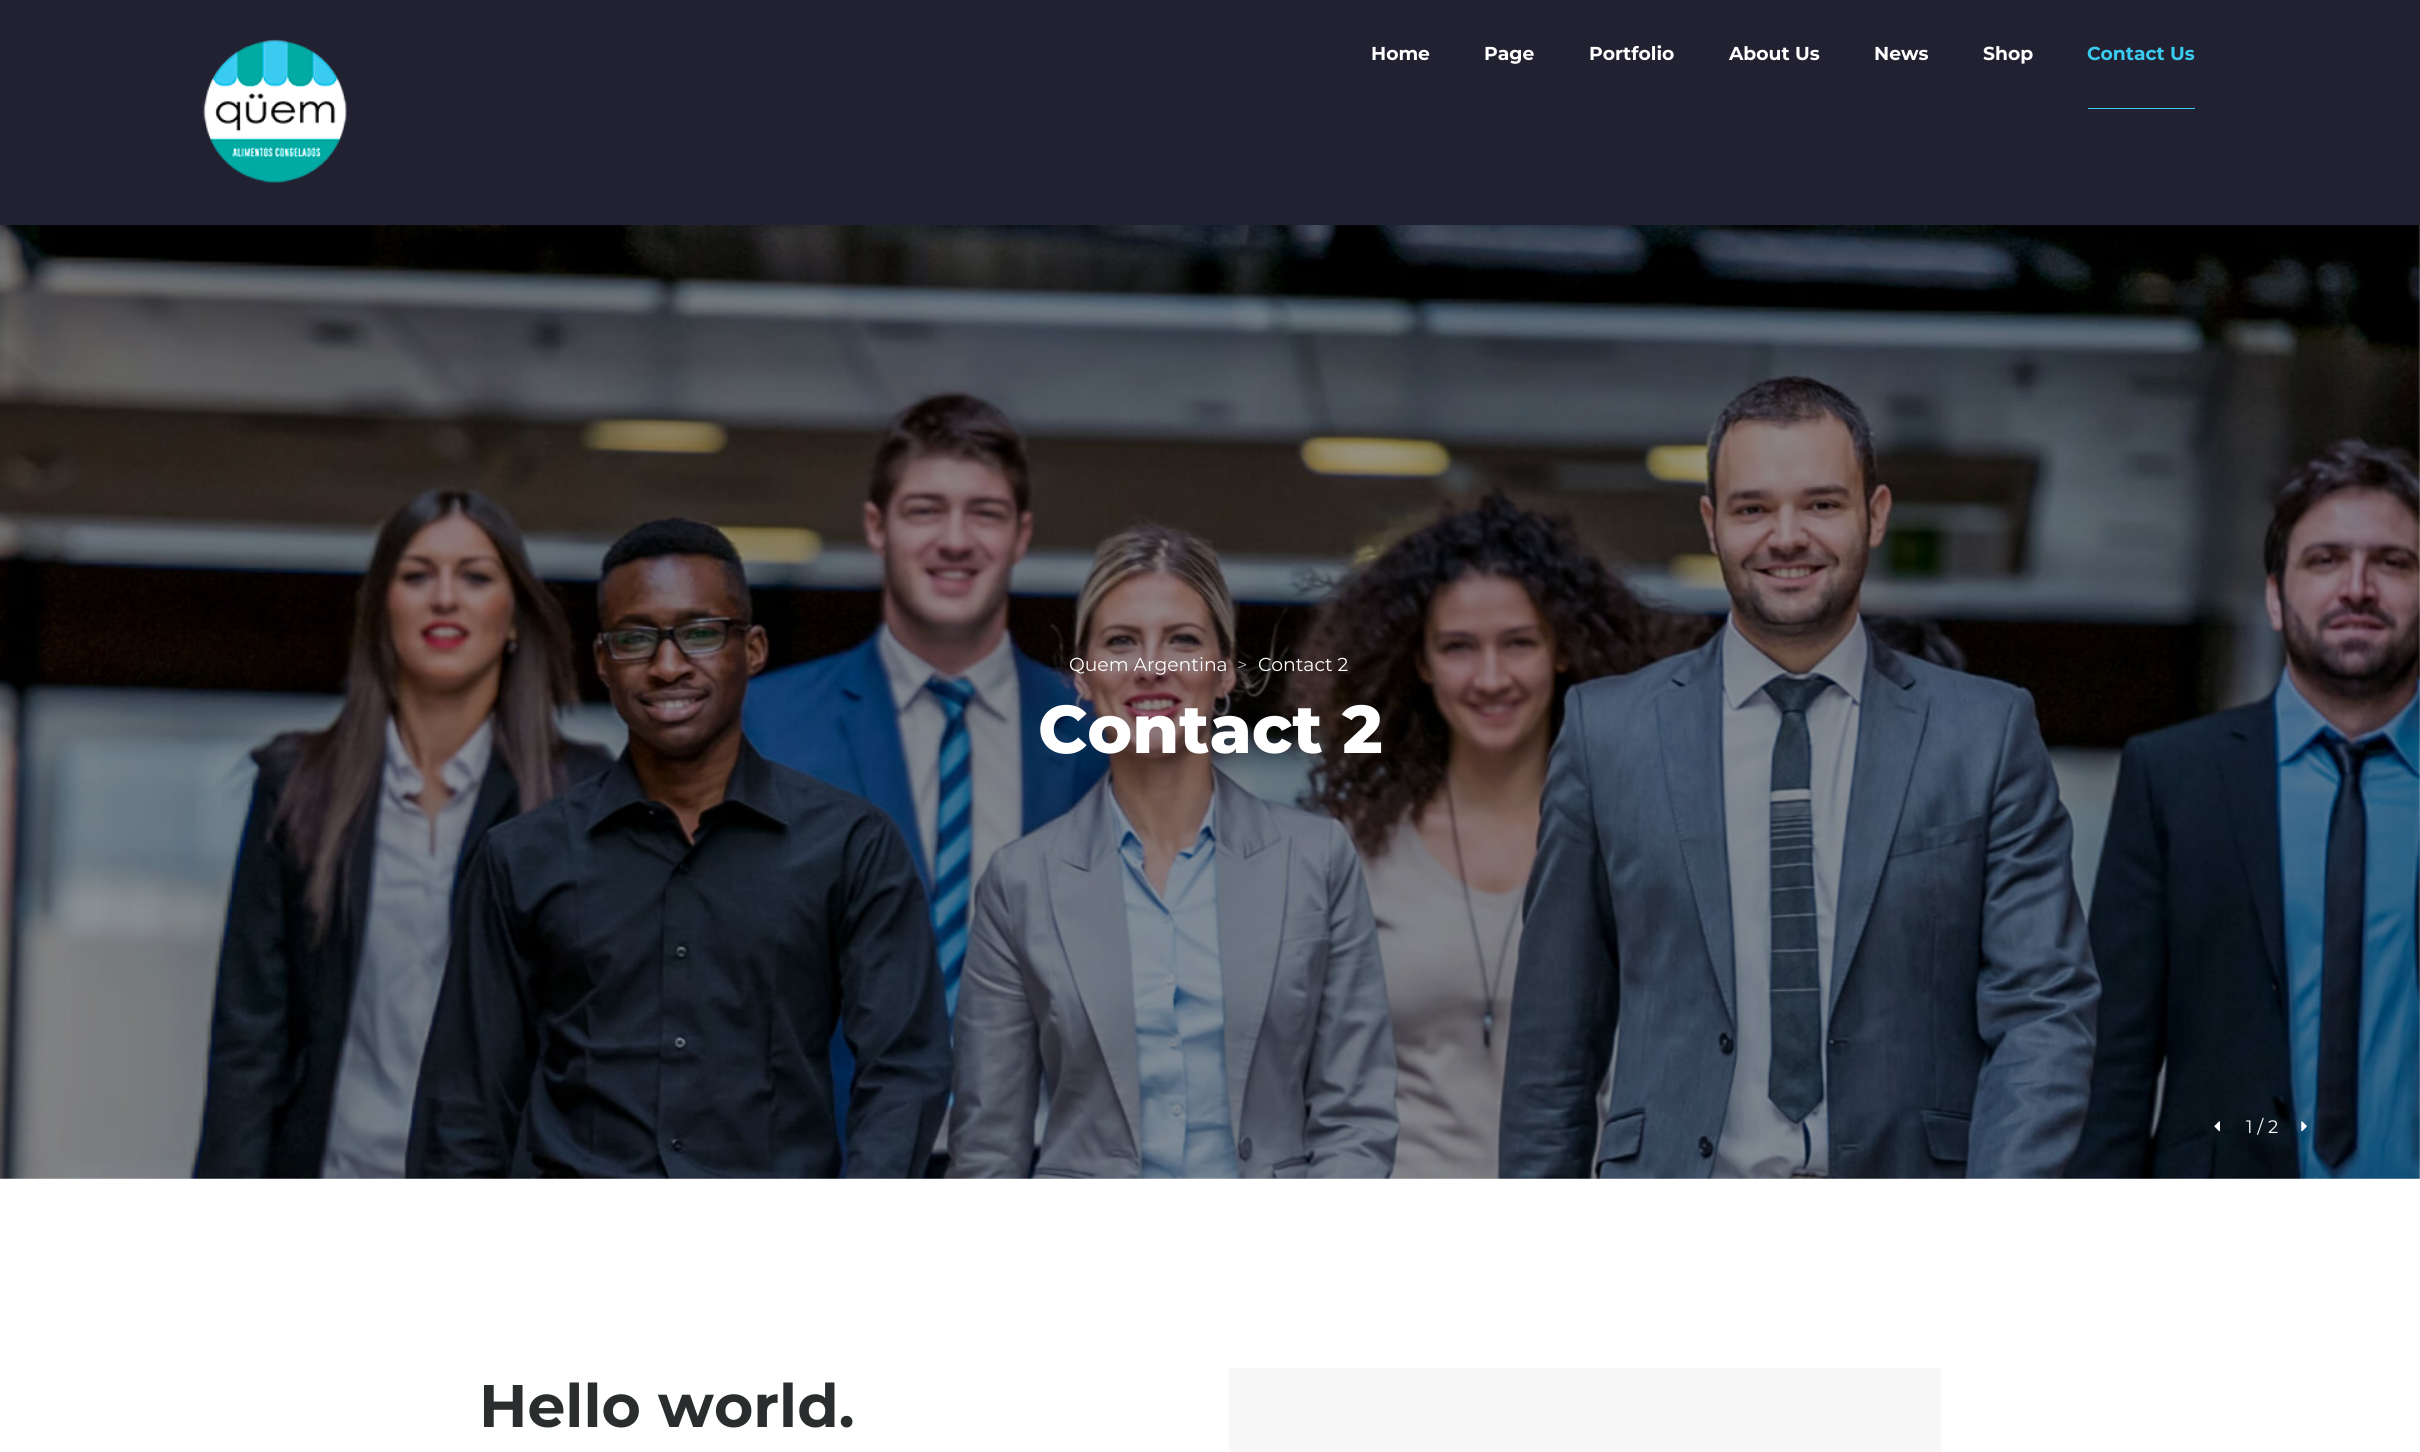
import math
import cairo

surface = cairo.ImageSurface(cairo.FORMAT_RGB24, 2420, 1452)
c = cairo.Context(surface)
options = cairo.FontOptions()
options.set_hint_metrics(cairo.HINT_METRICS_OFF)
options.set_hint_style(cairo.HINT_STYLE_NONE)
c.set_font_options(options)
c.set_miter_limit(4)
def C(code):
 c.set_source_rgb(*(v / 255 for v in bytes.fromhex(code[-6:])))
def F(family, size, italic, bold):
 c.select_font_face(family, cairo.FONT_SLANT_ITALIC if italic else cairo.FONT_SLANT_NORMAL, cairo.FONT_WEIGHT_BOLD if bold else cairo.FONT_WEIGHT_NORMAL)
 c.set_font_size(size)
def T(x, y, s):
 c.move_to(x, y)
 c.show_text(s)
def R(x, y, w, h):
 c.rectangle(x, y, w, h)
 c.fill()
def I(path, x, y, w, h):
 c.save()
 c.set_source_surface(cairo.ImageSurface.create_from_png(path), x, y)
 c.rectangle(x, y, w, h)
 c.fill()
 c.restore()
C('ffffff')
c.paint()
C('212131')
R(0,0,2420,225)
I('1.png',203,39,144,144)
F('Montserrat',18.75,0,1)
C('ffffff')
T(1371,60,'Home')
T(1484,60,'Page')
T(1589,60,'Portfolio')
T(1729,60,'About Us')
T(1874,60,'News')
T(1983,60,'Shop')
C('3acbf0')
T(2087,60,'Contact Us')
R(2088,108,107,1)
I('2.png',0,225,2420,954)
I('3.png',2214,1121,6,11)
I('4.png',2301,1121,6,11)
F('Montserrat',18.75,0,0)
C('ffffff')
T(1069,671,'Quem Argentina')
F('Montserrat',18,0,0)
C('b2b2b2')
T(1237,671,'>')
F('Montserrat',18.75,0,0)
C('ffffff')
T(1258,671,'Contact 2')
F('Montserrat ExtraBold',67.5,0,0)
T(1038,753,'Contact 2')
F('Montserrat',18,0,0)
T(2246,1133,'1 / 2')
F('Montserrat',60,0,1)
C('2a2d2e')
T(479,1427,'Hello world.')
C('f7f7f7')
R(1229,1368,712,84)
surface.write_to_png('o.png')
